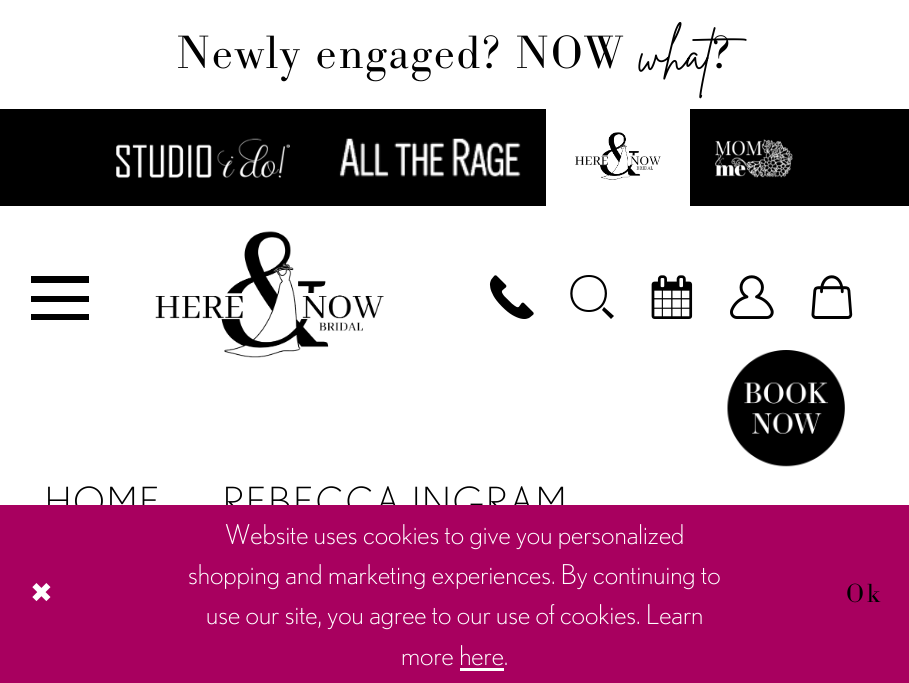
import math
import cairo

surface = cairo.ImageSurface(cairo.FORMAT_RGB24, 909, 683)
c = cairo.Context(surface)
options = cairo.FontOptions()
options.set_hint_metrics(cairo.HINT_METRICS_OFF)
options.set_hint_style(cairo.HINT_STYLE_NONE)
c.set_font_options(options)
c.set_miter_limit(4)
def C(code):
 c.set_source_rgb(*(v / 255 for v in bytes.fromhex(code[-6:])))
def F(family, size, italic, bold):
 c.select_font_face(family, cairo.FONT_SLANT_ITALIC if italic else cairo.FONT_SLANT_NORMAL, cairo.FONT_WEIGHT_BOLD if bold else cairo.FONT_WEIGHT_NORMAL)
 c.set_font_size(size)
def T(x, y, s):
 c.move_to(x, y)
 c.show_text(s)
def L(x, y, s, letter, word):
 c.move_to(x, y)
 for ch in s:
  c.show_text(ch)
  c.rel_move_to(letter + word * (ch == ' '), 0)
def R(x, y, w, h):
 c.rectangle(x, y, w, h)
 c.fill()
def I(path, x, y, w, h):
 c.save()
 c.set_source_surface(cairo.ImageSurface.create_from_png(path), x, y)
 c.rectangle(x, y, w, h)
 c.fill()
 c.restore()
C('ffffff')
c.paint()
F('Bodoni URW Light',48.5,0,0)
C('000000')
L(177,68,'Newly engaged? NOW',1.8,0)
F('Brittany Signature',48.5,0,0)
T(639,68,'what')
F('Bodoni URW Light',48.5,0,0)
L(712,68,'?',1.8,0)
R(0,109,909,97)
I('1.png',116,138,174,40)
I('2.png',339,138,182,39)
C('ffffff')
R(546,109,144,97)
I('3.png',575,132,86,48)
I('4.png',715,139,78,39)
C('000000')
c.new_path()
c.move_to(31,276)
c.line_to(89,276)
c.line_to(89,283)
c.line_to(31,283)
c.close_path()
c.move_to(31,302)
c.line_to(31,296)
c.line_to(89,296)
c.line_to(89,302)
c.close_path()
c.move_to(31,320)
c.line_to(31,314)
c.line_to(89,314)
c.line_to(89,320)
c.close_path()
c.fill()
I('5.png',155,231,229,127)
I('6.png',489,275,45,44)
c.new_path()
c.move_to(604,307)
c.line_to(602,310)
c.line_to(611,319)
c.line_to(614,316)
c.close_path()
c.move_to(589,312)
c.curve_to(564,312,564,275,589,275)
c.curve_to(613,275,613,312,589,312)
c.close_path()
c.move_to(589,277)
c.curve_to(567,277,567,310,589,310)
c.curve_to(610,310,610,277,589,277)
c.close_path()
c.fill()
I('7.png',651,275,42,44)
I('8.png',730,275,44,44)
I('9.png',811,275,42,44)
I('10.png',727,350,118,117)
F('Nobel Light',38.75,0,0)
L(45,515,'HOME',2.25,0)
L(223,515,'REBECCA INGRAM',2.25,0)
C('a8005f')
R(0,505,909,178)
F('DejaVu Sans',27.25,0,0)
C('ffffff')
L(30,602,'✖',3,0)
F('Nobel Light',27.25,0,0)
T(225,544,'Website uses cookies to give you personalized')
T(188,584,'shopping and marketing experiences. By continuing to')
T(206,624,'use our site, you agree to our use of cookies. Learn')
T(401,665,'more here.')
R(460,668,44,3)
F('Bodoni URW Light',27.25,0,0)
C('000000')
L(846,602,'Ok',3,0)
surface.write_to_png('o.png')
